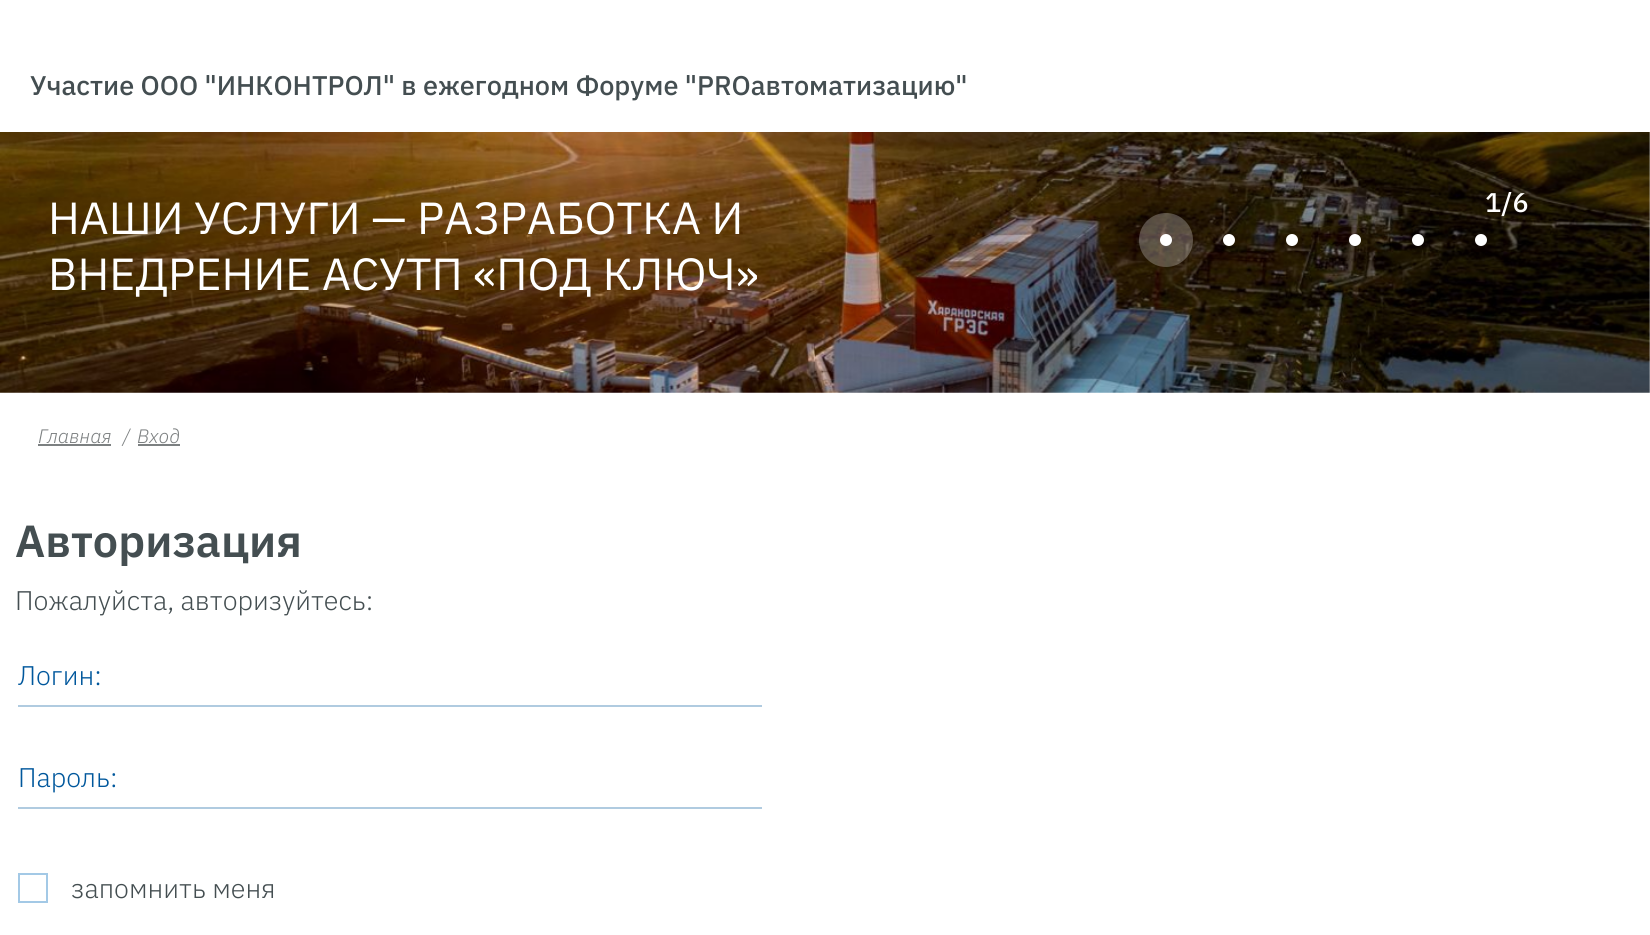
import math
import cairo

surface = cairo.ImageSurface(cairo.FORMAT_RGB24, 1650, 935)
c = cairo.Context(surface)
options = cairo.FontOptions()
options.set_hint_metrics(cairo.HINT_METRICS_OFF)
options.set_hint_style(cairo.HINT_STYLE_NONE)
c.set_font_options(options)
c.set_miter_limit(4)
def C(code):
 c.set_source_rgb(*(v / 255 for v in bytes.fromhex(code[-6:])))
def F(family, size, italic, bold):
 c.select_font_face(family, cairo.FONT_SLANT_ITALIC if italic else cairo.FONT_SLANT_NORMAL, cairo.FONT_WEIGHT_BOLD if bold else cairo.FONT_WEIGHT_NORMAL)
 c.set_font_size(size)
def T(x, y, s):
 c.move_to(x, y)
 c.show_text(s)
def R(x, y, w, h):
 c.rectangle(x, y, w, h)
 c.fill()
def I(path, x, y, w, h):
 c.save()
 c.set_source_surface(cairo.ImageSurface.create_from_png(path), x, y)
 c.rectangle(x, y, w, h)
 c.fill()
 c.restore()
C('ffffff')
c.paint()
F('IBM Plex Sans Medium',27,0,0)
C('444e51')
T(30,95,'Участие ООО "ИНКОНТРОЛ" в ежегодном Форуме "PROавтоматизацию"')
I('1.png',0,132,1650,261)
F('IBM Plex Sans',45,0,0)
C('ffffff')
T(48,234,'НАШИ УСЛУГИ — РАЗРАБОТКА И')
T(48,290,'ВНЕДРЕНИЕ АСУТП «ПОД КЛЮЧ»')
c.set_source_rgba(1,1,1,0.26)
c.new_path()
c.arc(1166,240,27,0,2 * math.pi)
c.fill()
C('ffffff')
c.arc(1166,240,6,0,2 * math.pi)
c.fill()
c.arc(1229,240,6,0,2 * math.pi)
c.fill()
c.arc(1292,240,6,0,2 * math.pi)
c.fill()
c.arc(1355,240,6,0,2 * math.pi)
c.fill()
c.arc(1418,240,6,0,2 * math.pi)
c.fill()
c.arc(1481,240,6,0,2 * math.pi)
c.fill()
F('IBM Plex Sans Medium',27,0,0)
T(1485,212,'1/6')
F('IBM Plex Sans Light',19.5,1,0)
C('7c8081')
T(38,443,'Главная')
R(38,444,73,2)
T(123,443,'/')
T(137,443,'Вход')
R(138,444,42,2)
F('IBM Plex Sans SemiBold',45,0,0)
C('444e51')
T(15,557,'Авторизация')
F('IBM Plex Sans Light',27,0,0)
T(15,610,'Пожалуйста, авторизуйтесь:')
C('00579c')
T(18,685,'Логин:')
C('b0cbe0')
R(18,705,744,2)
C('00579c')
T(18,787,'Пароль:')
C('b0cbe0')
R(18,807,744,2)
c.rectangle(19,874,28,28)
C('a3c9e6')
c.stroke()
C('444e51')
T(71,898,'запомнить меня')
surface.write_to_png('o.png')
